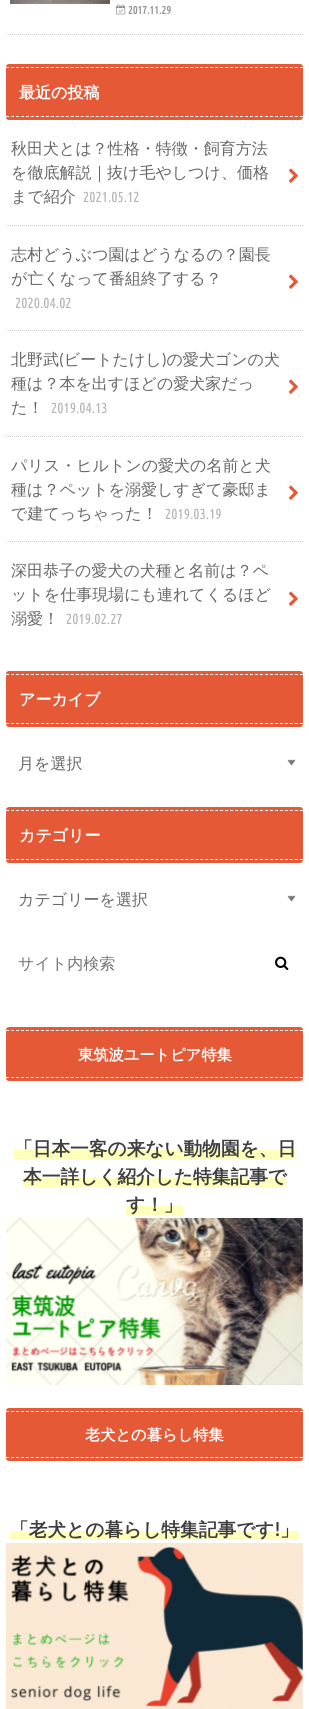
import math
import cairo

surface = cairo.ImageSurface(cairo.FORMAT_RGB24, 309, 1709)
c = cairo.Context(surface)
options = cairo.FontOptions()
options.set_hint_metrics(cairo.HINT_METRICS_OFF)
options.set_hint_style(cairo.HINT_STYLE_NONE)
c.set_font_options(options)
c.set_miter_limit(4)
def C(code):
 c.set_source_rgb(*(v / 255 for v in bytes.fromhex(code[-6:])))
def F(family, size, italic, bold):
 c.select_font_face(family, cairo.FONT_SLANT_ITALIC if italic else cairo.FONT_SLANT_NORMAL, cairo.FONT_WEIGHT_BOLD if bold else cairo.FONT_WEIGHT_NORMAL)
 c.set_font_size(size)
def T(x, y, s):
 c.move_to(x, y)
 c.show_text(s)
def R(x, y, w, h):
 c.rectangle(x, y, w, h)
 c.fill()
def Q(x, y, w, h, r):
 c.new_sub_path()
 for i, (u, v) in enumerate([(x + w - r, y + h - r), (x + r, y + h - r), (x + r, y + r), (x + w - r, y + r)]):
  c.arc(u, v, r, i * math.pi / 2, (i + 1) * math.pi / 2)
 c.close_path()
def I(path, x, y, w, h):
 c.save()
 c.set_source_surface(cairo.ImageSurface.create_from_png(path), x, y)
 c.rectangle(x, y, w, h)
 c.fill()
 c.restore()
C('ffffff')
c.paint()
c.new_path()
c.move_to(6,34.5)
c.line_to(303,34.5)
C('cccccc')
c.set_line_width(1)
c.set_dash([1,1])
c.stroke()
I('1.png',10,0,100,4)
I('2.png',116,4,10,11)
F('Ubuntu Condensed',11,0,1)
C('949494')
T(128,14,'2017.11.29')
C('e55937')
Q(6,64,297,56,3)
c.fill()
c.new_path()
c.move_to(6,67.5)
c.line_to(303,67.5)
C('ffffff')
c.set_dash([3,1.98])
c.stroke()
c.new_path()
c.move_to(6,116.5)
c.line_to(303,116.5)
c.stroke()
F('WenQuanYi Zen Hei',16,0,1)
T(19,98,'最近の投稿')
c.new_path()
c.move_to(6,225.5)
c.line_to(303,225.5)
C('cccccc')
c.set_dash([1,1])
c.stroke()
F('WenQuanYi Zen Hei Medium',16,0,0)
C('666666')
T(11,154,'秋田犬とは？性格・特徴・飼育方法')
T(11,178,'を徹底解説｜抜け毛やしつけ、価格')
I('3.png',288,168,10,15)
T(11,202,'まで紹介')
F('Ubuntu Condensed',14.5,0,0)
C('b3b3b3')
T(83,202,'2021.05.12')
c.new_path()
c.move_to(6,330.5)
c.line_to(303,330.5)
C('cccccc')
c.stroke()
F('WenQuanYi Zen Hei Medium',16,0,0)
C('666666')
T(11,260,'志村どうぶつ園はどうなるの？園長')
T(11,284,'が亡くなって番組終了する？')
I('3.png',288,274,10,15)
F('Ubuntu Condensed',14.5,0,0)
C('b3b3b3')
T(15,308,'2020.04.02')
c.new_path()
c.move_to(6,436.5)
c.line_to(303,436.5)
C('cccccc')
c.stroke()
F('WenQuanYi Zen Hei Medium',16,0,0)
C('666666')
T(11,365,'北野武 ビートたけし の愛犬ゴンの犬')
F('Lato',16,0,0)
T(59,365,'(')
T(162,365,')')
F('WenQuanYi Zen Hei Medium',16,0,0)
T(11,389,'種は？本を出すほどの愛犬家だっ')
I('3.png',288,379,10,15)
T(11,413,'た！')
F('Ubuntu Condensed',14.5,0,0)
C('b3b3b3')
T(51,413,'2019.04.13')
c.new_path()
c.move_to(6,541.5)
c.line_to(303,541.5)
C('cccccc')
c.stroke()
F('WenQuanYi Zen Hei Medium',16,0,0)
C('666666')
T(11,471,'パリス・ヒルトンの愛犬の名前と犬')
T(11,495,'種は？ペットを溺愛しすぎて豪邸ま')
I('3.png',288,485,10,15)
T(11,519,'で建てっちゃった！')
F('Ubuntu Condensed',14.5,0,0)
C('b3b3b3')
T(165,519,'2019.03.19')
F('WenQuanYi Zen Hei Medium',16,0,0)
C('666666')
T(11,576,'深田恭子の愛犬の犬種と名前は？ペ')
T(11,600,'ットを仕事現場にも連れてくるほど')
I('3.png',288,591,10,15)
T(11,624,'溺愛！')
F('Ubuntu Condensed',14.5,0,0)
C('b3b3b3')
T(66,624,'2019.02.27')
C('e55937')
Q(6,671,297,56,3)
c.fill()
c.new_path()
c.move_to(6,674.5)
c.line_to(303,674.5)
C('ffffff')
c.set_dash([3,1.98])
c.stroke()
c.new_path()
c.move_to(6,723.5)
c.line_to(303,723.5)
c.stroke()
F('WenQuanYi Zen Hei',16,0,1)
T(19,705,'アーカイブ')
I('4.png',287,759,9,7)
F('WenQuanYi Zen Hei Medium',16,0,0)
C('666666')
T(18,769,'月を選択')
C('e55937')
Q(6,807,297,56,3)
c.fill()
c.new_path()
c.move_to(6,810.5)
c.line_to(303,810.5)
C('ffffff')
c.stroke()
c.new_path()
c.move_to(6,859.5)
c.line_to(303,859.5)
c.stroke()
F('WenQuanYi Zen Hei',16,0,1)
T(19,841,'カテゴリー')
I('4.png',287,895,9,7)
F('WenQuanYi Zen Hei Medium',16,0,0)
C('666666')
T(18,905,'カテゴリーを選択')
C('757575')
T(18,969,'サイト内検索')
I('5.png',275,956,14,14)
C('e55937')
Q(6,1027,297,54,3)
c.fill()
c.new_path()
c.move_to(6,1030.5)
c.line_to(303,1030.5)
C('ffffff')
c.stroke()
c.new_path()
c.move_to(6,1077.5)
c.line_to(303,1077.5)
c.stroke()
F('WenQuanYi Zen Hei',15.25,0,1)
T(78,1060,'東筑波ユートピア特集')
C('ffffbc')
R(14,1150,281,9)
F('WenQuanYi Zen Hei',18.7,0,1)
C('3e3e3e')
T(14,1155,'「日本一客の来ない動物園を、日')
C('ffffbc')
R(23,1178,263,9)
C('3e3e3e')
T(23,1183,'本一詳しく紹介した特集記事で')
C('ffffbc')
R(126,1206,57,9)
C('3e3e3e')
T(126,1211,'す！」')
I('6.png',6,1218,297,167)
C('e55937')
Q(6,1408,297,53,3)
c.fill()
c.new_path()
c.move_to(6,1411.5)
c.line_to(303,1411.5)
C('ffffff')
c.stroke()
c.new_path()
c.move_to(6,1457.5)
c.line_to(303,1457.5)
c.stroke()
F('WenQuanYi Zen Hei',15.25,0,1)
T(85,1440,'老犬との暮らし特集')
C('ffffbc')
R(10,1531,289,9)
F('WenQuanYi Zen Hei',18.7,0,1)
C('3e3e3e')
T(10,1536,'「老犬との暮らし特集記事です')
F('Lato',18.7,0,1)
T(274,1536,'!')
F('WenQuanYi Zen Hei',18.7,0,1)
T(280,1536,'」')
I('7.png',6,1543,297,166)
surface.write_to_png('o.png')
